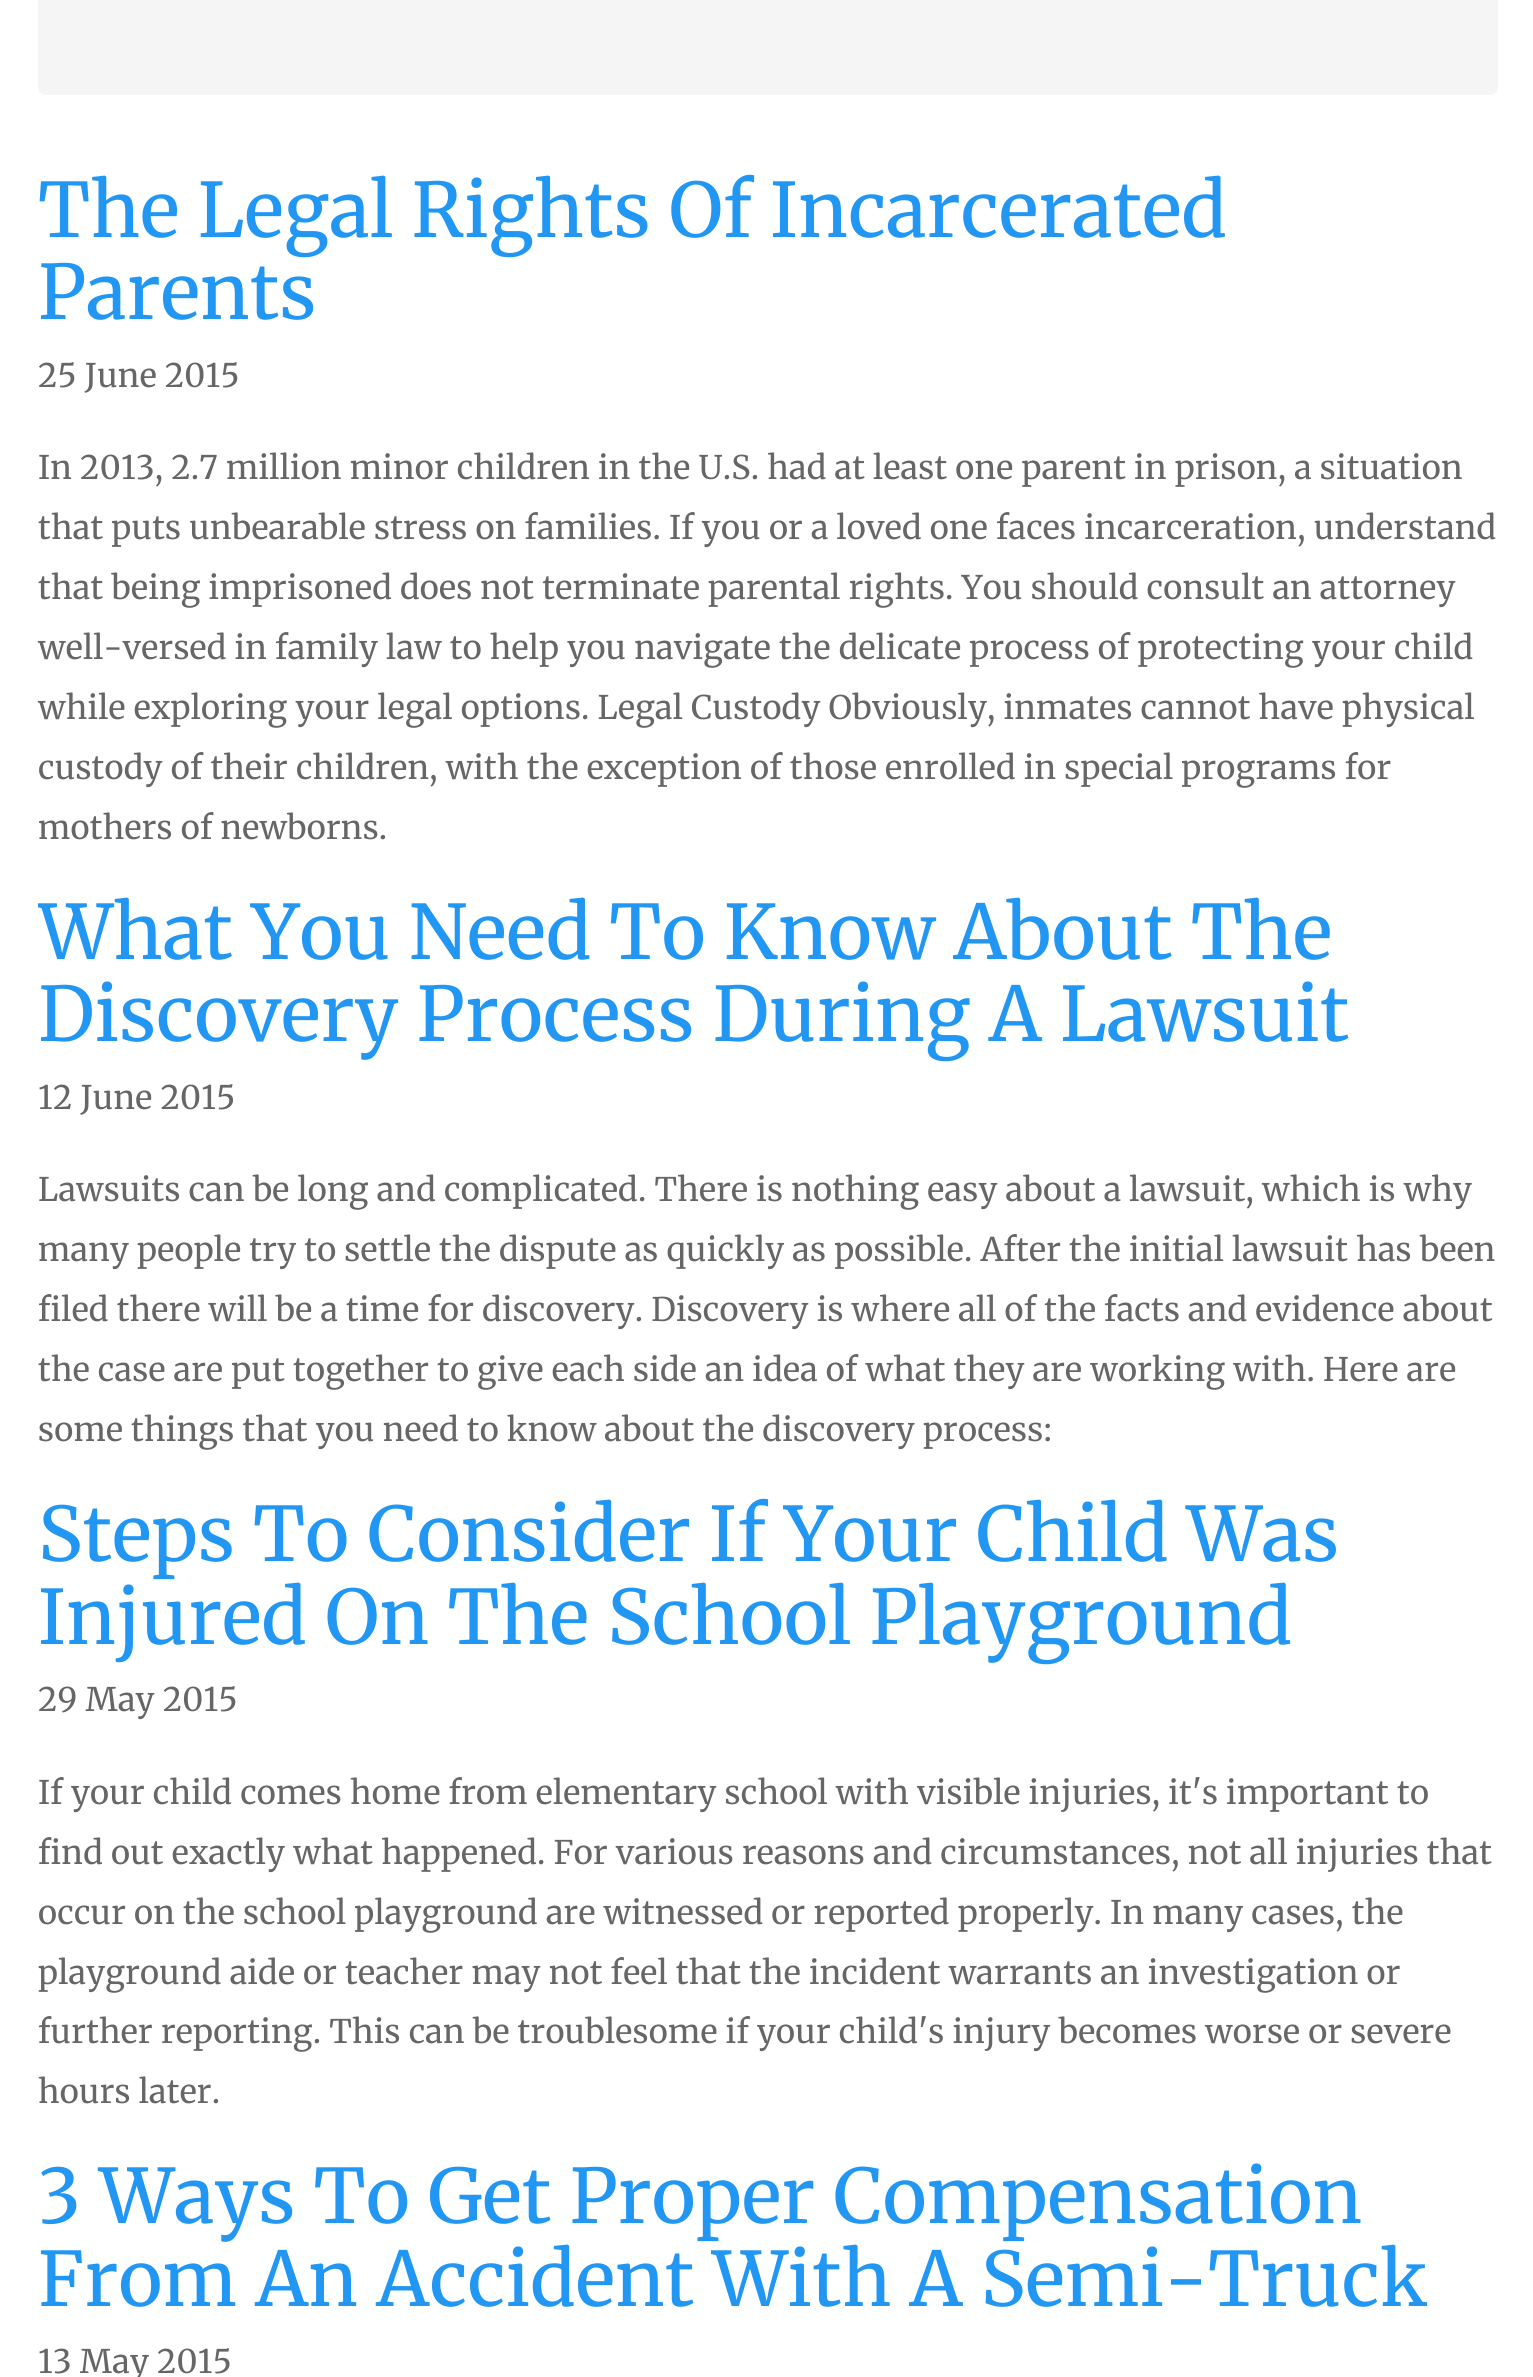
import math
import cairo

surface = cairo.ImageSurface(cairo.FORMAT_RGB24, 1533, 2377)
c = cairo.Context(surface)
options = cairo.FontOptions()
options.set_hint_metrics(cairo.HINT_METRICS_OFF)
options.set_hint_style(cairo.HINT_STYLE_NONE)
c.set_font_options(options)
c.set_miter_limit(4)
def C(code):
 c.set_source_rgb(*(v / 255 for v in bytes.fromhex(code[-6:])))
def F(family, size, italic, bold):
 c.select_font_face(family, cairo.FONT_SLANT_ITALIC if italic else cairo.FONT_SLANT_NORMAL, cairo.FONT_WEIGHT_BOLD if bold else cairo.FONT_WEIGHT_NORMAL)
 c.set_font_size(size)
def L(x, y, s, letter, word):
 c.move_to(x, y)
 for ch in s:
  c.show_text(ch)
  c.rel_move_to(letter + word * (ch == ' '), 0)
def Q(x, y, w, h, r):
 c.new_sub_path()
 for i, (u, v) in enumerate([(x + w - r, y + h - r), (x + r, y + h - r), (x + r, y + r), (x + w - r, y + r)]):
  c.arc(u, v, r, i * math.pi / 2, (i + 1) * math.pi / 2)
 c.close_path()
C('ffffff')
c.paint()
C('f5f5f5')
Q(38,-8,1460,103,8)
c.fill()
F('Merriweather Light',75,0,0)
C('2196f3')
L(38,237,'The Legal Rights Of Incarcerated',.25,0)
L(38,319,'Parents',.25,0)
F('Merriweather Light',32.5,0,0)
C('666666')
L(38,387,'25 June 2015',.25,0)
L(38,479,'In 2013, 2.7 million minor children in the U.S. had at least one parent in prison, a situation',.25,0)
L(38,539,'that puts unbearable stress on families. If you or a loved one faces incarceration, understand',.25,0)
L(38,599,'that being imprisoned does not terminate parental rights. You should consult an attorney',.25,0)
L(38,659,'well-versed in family law to help you navigate the delicate process of protecting your child',.25,0)
L(38,719,'while exploring your legal options. Legal Custody Obviously, inmates cannot have physical',.25,0)
L(38,779,'custody of their children, with the exception of those enrolled in special programs for',.25,0)
L(38,839,'mothers of newborns.',.25,0)
c.save()
c.rectangle(38,893,1460,600)
c.clip()
F('Merriweather Light',75,0,0)
C('2196f3')
L(38,959,'What You Need To Know About The',.25,0)
c.restore()
F('Merriweather Light',75,0,0)
C('2196f3')
L(38,1041,'Discovery Process During A Lawsuit',.25,0)
F('Merriweather Light',32.5,0,0)
C('666666')
L(38,1109,'12 June 2015',.25,0)
L(38,1201,'Lawsuits can be long and complicated. There is nothing easy about a lawsuit, which is why',.25,0)
L(38,1261,'many people try to settle the dispute as quickly as possible. After the initial lawsuit has been',.25,0)
L(38,1321,'filed there will be a time for discovery. Discovery is where all of the facts and evidence about',.25,0)
L(38,1381,'the case are put together to give each side an idea of what they are working with. Here are',.25,0)
L(38,1441,'some things that you need to know about the discovery process:',.25,0)
F('Merriweather Light',75,0,0)
C('2196f3')
L(38,1561,'Steps To Consider If Your Child Was',.25,0)
L(38,1644,'Injured On The School Playground',.25,0)
F('Merriweather Light',32.5,0,0)
C('666666')
L(38,1711,'29 May 2015',.25,0)
L(38,1804,'If your child comes home from elementary school with visible injuries, it\'s important to',.25,0)
L(38,1864,'find out exactly what happened. For various reasons and circumstances, not all injuries that',.25,0)
L(38,1924,'occur on the school playground are witnessed or reported properly. In many cases, the',.25,0)
L(38,1984,'playground aide or teacher may not feel that the incident warrants an investigation or',.25,0)
L(38,2043,'further reporting. This can be troublesome if your child\'s injury becomes worse or severe',.25,0)
L(38,2103,'hours later.',.25,0)
F('Merriweather Light',75,0,0)
C('2196f3')
L(38,2223,'3 Ways To Get Proper Compensation',.25,0)
L(38,2306,'From An Accident With A Semi-Truck',.25,0)
F('Merriweather Light',32.5,0,0)
C('666666')
L(38,2373,'13 May 2015',.25,0)
surface.write_to_png('o.png')
